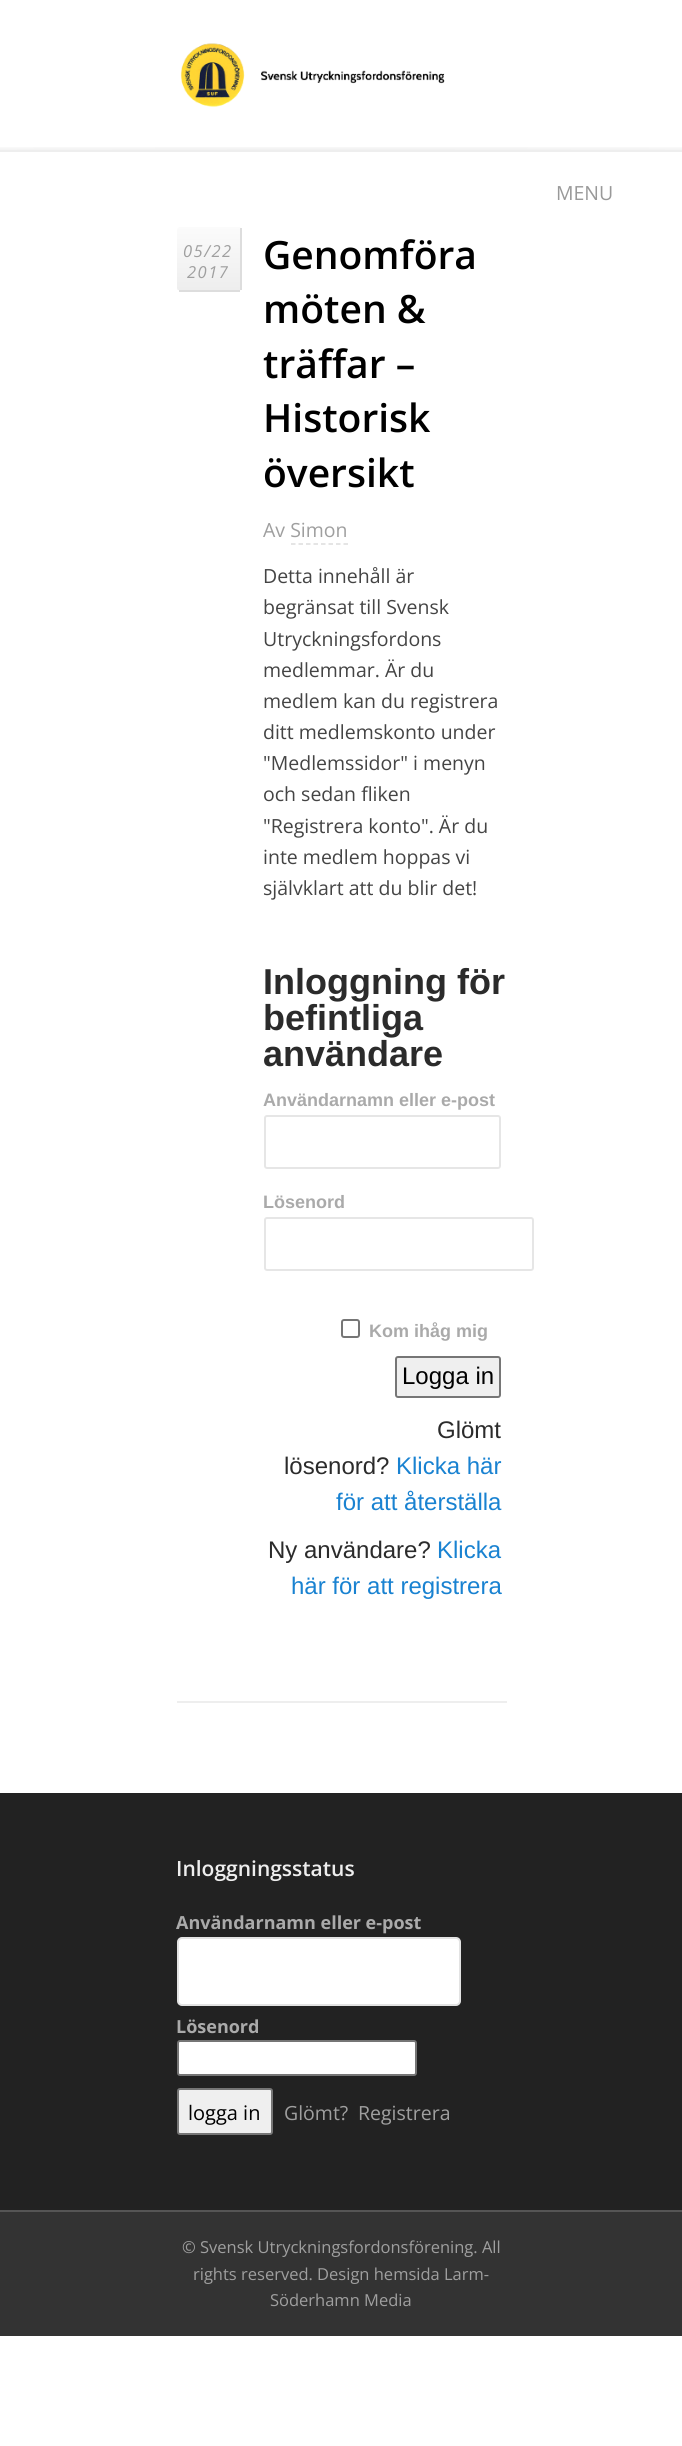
import math
import cairo

surface = cairo.ImageSurface(cairo.FORMAT_RGB24, 682, 2446)
c = cairo.Context(surface)
options = cairo.FontOptions()
options.set_hint_metrics(cairo.HINT_METRICS_OFF)
options.set_hint_style(cairo.HINT_STYLE_NONE)
c.set_font_options(options)
c.set_miter_limit(4)
def C(code):
 c.set_source_rgb(*(v / 255 for v in bytes.fromhex(code[-6:])))
def F(family, size, italic, bold):
 c.select_font_face(family, cairo.FONT_SLANT_ITALIC if italic else cairo.FONT_SLANT_NORMAL, cairo.FONT_WEIGHT_BOLD if bold else cairo.FONT_WEIGHT_NORMAL)
 c.set_font_size(size)
def T(x, y, s):
 c.move_to(x, y)
 c.show_text(s)
def L(x, y, s, letter, word):
 c.move_to(x, y)
 for ch in s:
  c.show_text(ch)
  c.rel_move_to(letter + word * (ch == ' '), 0)
def R(x, y, w, h):
 c.rectangle(x, y, w, h)
 c.fill()
def Q(x, y, w, h, r):
 c.new_sub_path()
 for i, (u, v) in enumerate([(x + w - r, y + h - r), (x + r, y + h - r), (x + r, y + r), (x + w - r, y + r)]):
  c.arc(u, v, r, i * math.pi / 2, (i + 1) * math.pi / 2)
 c.close_path()
def I(path, x, y, w, h):
 c.save()
 c.set_source_surface(cairo.ImageSurface.create_from_png(path), x, y)
 c.rectangle(x, y, w, h)
 c.fill()
 c.restore()
C('ffffff')
c.paint()
I('1.png',0,147,682,3)
C('eeeeee')
R(0,150,682,2)
I('2.png',180,43,265,64)
F('Open Sans',19.5,0,0)
C('999999')
T(556,200,'MENU')
C('eeeeee')
R(177,1701,330,2)
c.save()
Q(177,227,65,64,3)
c.clip()
gradient = cairo.LinearGradient(209,227,209,290)
gradient.add_color_stop_rgba(0,0.984,0.984,0.984,1)
gradient.add_color_stop_rgba(1,0.933,0.933,0.933,1)
c.set_source(gradient)
c.new_path()
c.move_to(180,227)
c.line_to(239,227)
c.curve_to(240.5,227,242,228.5,242,230)
c.line_to(242,290)
c.line_to(177,290)
c.line_to(177,230)
c.curve_to(177,228.5,178.5,227,180,227)
c.close_path()
c.fill()
gradient = cairo.LinearGradient(209,290,209,353)
gradient.add_color_stop_rgba(0,0.984,0.984,0.984,1)
gradient.add_color_stop_rgba(1,0.933,0.933,0.933,1)
c.set_source(gradient)
R(177,290,65,1)
c.restore()
C('dddddd')
R(240,228,2,62)
R(179,290,61,2)
F('Open Sans',16.5,1,0)
C('9f9f9f')
L(183,257,'05/22',1.5,0)
L(187,278,'2017',1.5,0)
F('Open Sans SemiBold',39,0,0)
C('000000')
T(263,269,'Genomföra')
T(263,323,'möten &')
T(263,378,'träffar –')
T(263,432,'Historisk')
T(263,487,'översikt')
F('Open Sans',19.5,0,0)
C('9f9f9f')
T(263,537,'Av Simon')
c.new_path()
c.move_to(291,544)
c.line_to(348,544)
C('dddddd')
c.set_line_width(1.5)
c.set_dash([4.5,3])
c.stroke()
C('444444')
T(263,583,'Detta innehåll är')
T(263,614,'begränsat till Svensk')
T(263,646,'Utryckningsfordons')
T(263,677,'medlemmar. Är du')
T(263,708,'medlem kan du registrera')
T(263,739,'ditt medlemskonto under')
T(263,770,'"Medlemssidor" i menyn')
T(263,801,'och sedan fliken')
T(263,833,'"Registrera konto". Är du')
T(263,864,'inte medlem hoppas vi')
T(263,895,'självklart att du blir det!')
F('Liberation Sans',36,0,1)
C('2b2b2b')
T(263,994,'Inloggning för')
T(263,1030,'befintliga')
T(263,1066,'användare')
F('Liberation Sans',18,0,1)
C('aaaaaa')
T(263,1106,'Användarnamn eller e-post')
Q(265,1116,235,52,2)
C('e6e6e6')
c.set_line_width(2)
c.set_dash([])
c.stroke()
C('aaaaaa')
T(263,1208,'Lösenord')
Q(265,1218,268,52,2)
C('e6e6e6')
c.stroke()
Q(342,1320,17,17,2)
C('767676')
c.stroke()
C('aaaaaa')
T(369,1337,'Kom ihåg mig')
C('efefef')
Q(396,1357,104,40,2)
c.fill_preserve()
C('767676')
c.stroke()
F('Liberation Sans',24,0,0)
C('000000')
T(402,1384,'Logga in')
C('2b2b2b')
T(437,1438,'Glömt')
T(284,1474,'lösenord?')
C('1982d1')
T(396,1474,'Klicka här')
T(336,1510,'för att återställa')
C('2b2b2b')
T(268,1558,'Ny användare?')
C('1982d1')
T(437,1558,'Klicka')
T(291,1594,'här för att registrera')
C('222222')
R(0,1793,682,417)
F('Open Sans SemiBold',21,0,0)
C('eeeeee')
T(176,1876,'Inloggningsstatus')
F('Open Sans',18,0,1)
C('aaaaaa')
T(176,1929,'Användarnamn eller e-post')
C('ffffff')
Q(178,1938,282,67,4)
c.fill_preserve()
C('e3e3e3')
c.stroke()
C('aaaaaa')
T(176,2033,'Lösenord')
C('ffffff')
Q(178,2041,238,34,2)
c.fill_preserve()
C('767676')
c.stroke()
C('efefef')
Q(178,2089,94,45,2)
c.fill_preserve()
C('767676')
c.stroke()
F('Open Sans',20,0,0)
C('000000')
T(188,2120,'logga in')
F('Open Sans',19.5,0,0)
C('9f9f9f')
T(284,2120,'Glömt?')
T(358,2120,'Registrera')
C('333333')
R(0,2212,682,124)
C('555555')
R(0,2210,682,2)
F('Open Sans',16.5,0,0)
C('9f9f9f')
T(182,2253,'© Svensk Utryckningsfordonsförening. All')
T(193,2280,'rights reserved. Design hemsida Larm-')
T(270,2306,'Söderhamn Media')
surface.write_to_png('o.png')
